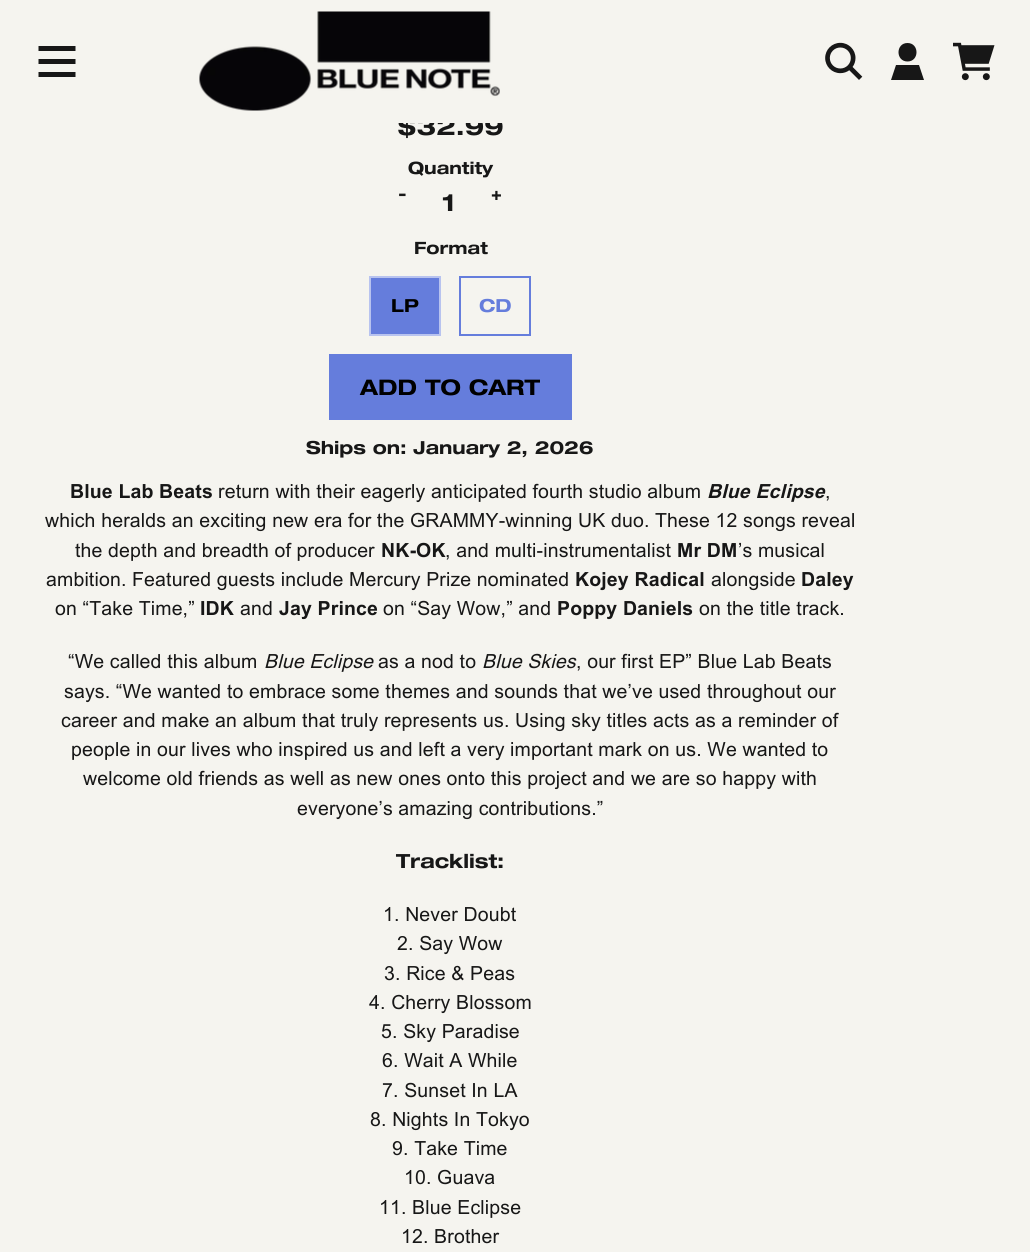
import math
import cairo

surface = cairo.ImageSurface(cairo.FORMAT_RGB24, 1030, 1252)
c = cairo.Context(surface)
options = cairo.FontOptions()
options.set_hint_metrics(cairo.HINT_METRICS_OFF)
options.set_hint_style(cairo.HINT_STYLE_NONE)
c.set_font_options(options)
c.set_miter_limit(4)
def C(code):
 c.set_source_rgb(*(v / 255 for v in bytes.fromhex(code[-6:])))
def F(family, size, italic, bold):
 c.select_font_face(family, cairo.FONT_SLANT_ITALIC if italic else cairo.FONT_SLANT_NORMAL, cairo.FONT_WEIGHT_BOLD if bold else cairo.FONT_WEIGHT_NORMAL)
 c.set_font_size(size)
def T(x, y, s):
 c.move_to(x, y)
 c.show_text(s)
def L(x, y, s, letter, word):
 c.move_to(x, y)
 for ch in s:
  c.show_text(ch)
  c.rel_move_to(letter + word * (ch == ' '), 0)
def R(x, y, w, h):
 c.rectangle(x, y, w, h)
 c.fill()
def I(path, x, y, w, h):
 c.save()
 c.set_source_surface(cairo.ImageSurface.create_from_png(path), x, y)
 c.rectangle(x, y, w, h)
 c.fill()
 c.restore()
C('f5f4ef')
c.paint()
F('Helvetica Neue',24,0,1)
C('171717')
T(397,135,'$32.99')
C('f5f4ef')
R(398,115,104,8)
C('171717')
c.new_path()
c.move_to(38.5,46)
c.line_to(75.5,46)
c.line_to(75.5,51)
c.line_to(38.5,51)
c.close_path()
c.move_to(38.5,59)
c.line_to(75.5,59)
c.line_to(75.5,64)
c.line_to(38.5,64)
c.close_path()
c.move_to(75.5,72)
c.line_to(75.5,77)
c.line_to(38.5,77)
c.line_to(38.5,72)
c.close_path()
c.fill()
I('1.png',199,11,301,100)
I('2.png',825,42,38,38)
c.new_path()
c.move_to(907.5,61.5)
c.curve_to(919.5,61.5,919.5,43,907.5,43)
c.curve_to(895.5,43,895.5,61.5,907.5,61.5)
c.close_path()
c.move_to(924,80)
c.line_to(919,65)
c.line_to(896,65)
c.line_to(891,80)
c.close_path()
c.fill()
I('3.png',953,42,42,39)
F('Helvetica Neue',17,0,1)
T(408,174,'Quantity')
F('Helvetica Neue',18,0,1)
T(398,200,'-')
F('Helvetica Neue',24,0,1)
T(442,211,'1')
F('Helvetica Neue',18,0,1)
T(491,200,'+')
F('Helvetica Neue',17,0,1)
T(414,254,'Format')
C('657ddc')
c.rectangle(370,277,70,58)
c.fill_preserve()
C('b8c3ef')
c.stroke()
F('Helvetica Neue',18,0,1)
C('000000')
T(391,312,'LP')
c.rectangle(460,277,70,58)
C('657ddc')
c.stroke()
T(479,312,'CD')
c.rectangle(330,355,241,64)
c.fill_preserve()
c.stroke()
F('Helvetica Neue',21.5,0,1)
C('000000')
T(360,395,'ADD TO CART')
F('Helvetica Neue',18,0,1)
C('171717')
T(306,454,'Ships on: January 2, 2026')
F('Arial',19.5,0,1)
L(70,498,'Blue Lab Beats',.15,0)
F('Arial',19.5,0,0)
L(218,498,'return with their eagerly anticipated fourth studio album',.15,0)
F('Arial',19.5,1,1)
L(707,498,'Blue Eclipse',.15,0)
F('Arial',19.5,0,0)
L(825,498,',',.15,0)
L(45,527,'which heralds an exciting new era for the GRAMMY-winning UK duo. These 12 songs reveal',.15,0)
L(75,557,'the depth and breadth of producer',.15,0)
F('Arial',19.5,0,1)
L(381,557,'NK-OK',.15,0)
F('Arial',19.5,0,0)
L(445,557,', and multi-instrumentalist',.15,0)
F('Arial',19.5,0,1)
L(677,557,'Mr DM',.15,0)
F('Arial',19.5,0,0)
L(738,557,'’s musical',.15,0)
L(46,586,'ambition. Featured guests include Mercury Prize nominated',.15,0)
F('Arial',19.5,0,1)
L(575,586,'Kojey Radical',.15,0)
F('Arial',19.5,0,0)
L(711,586,'alongside',.15,0)
F('Arial',19.5,0,1)
L(801,586,'Daley',.15,0)
F('Arial',19.5,0,0)
L(55,615,'on “Take Time,”',.15,0)
F('Arial',19.5,0,1)
L(200,615,'IDK',.15,0)
F('Arial',19.5,0,0)
L(240,615,'and',.15,0)
F('Arial',19.5,0,1)
L(279,615,'Jay Prince',.15,0)
F('Arial',19.5,0,0)
L(383,615,'on “Say Wow,” and',.15,0)
F('Arial',19.5,0,1)
L(557,615,'Poppy Daniels',.15,0)
F('Arial',19.5,0,0)
L(699,615,'on the title track.',.15,0)
L(68,668,'“We called this album',.15,0)
F('Arial',19.5,1,0)
L(264,668,'Blue Eclipse',.15,0)
F('Arial',19.5,0,0)
L(378,668,'as a nod to',.15,0)
F('Arial',19.5,1,0)
L(482,668,'Blue Skies',.15,0)
F('Arial',19.5,0,0)
L(576,668,', our first EP” Blue Lab Beats',.15,0)
L(64,698,'says. “We wanted to embrace some themes and sounds that we’ve used throughout our',.15,0)
L(61,727,'career and make an album that truly represents us. Using sky titles acts as a reminder of',.15,0)
L(71,756,'people in our lives who inspired us and left a very important mark on us. We wanted to',.15,0)
L(83,785,'welcome old friends as well as new ones onto this project and we are so happy with',.15,0)
L(297,815,'everyone’s amazing contributions.”',.15,0)
F('Helvetica Neue',19.5,0,1)
T(396,868,'Tracklist:')
F('Arial',19.5,0,0)
L(383,921,'1. Never Doubt',.15,0)
L(397,950,'2. Say Wow',.15,0)
L(384,980,'3. Rice & Peas',.15,0)
L(369,1009,'4. Cherry Blossom',.15,0)
L(381,1038,'5. Sky Paradise',.15,0)
L(382,1067,'6. Wait A While',.15,0)
L(382,1097,'7. Sunset In LA',.15,0)
L(370,1126,'8. Nights In Tokyo',.15,0)
L(392,1155,'9. Take Time',.15,0)
L(404,1184,'10. Guava',.15,0)
L(379,1214,'11. Blue Eclipse',.15,0)
L(401,1243,'12. Brother',.15,0)
surface.write_to_png('o.png')
